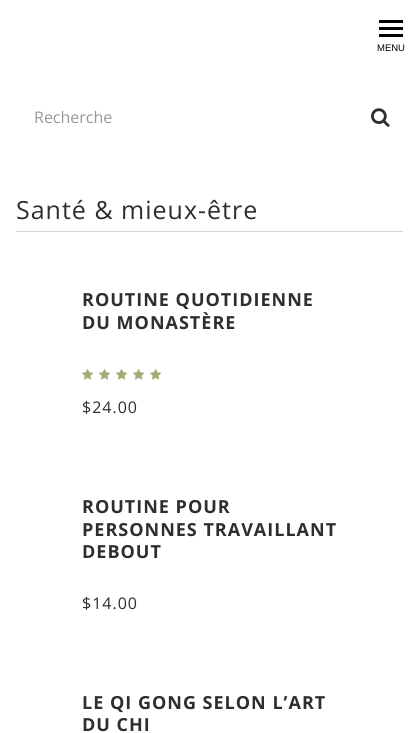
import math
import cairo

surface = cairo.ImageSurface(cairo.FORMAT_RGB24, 419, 733)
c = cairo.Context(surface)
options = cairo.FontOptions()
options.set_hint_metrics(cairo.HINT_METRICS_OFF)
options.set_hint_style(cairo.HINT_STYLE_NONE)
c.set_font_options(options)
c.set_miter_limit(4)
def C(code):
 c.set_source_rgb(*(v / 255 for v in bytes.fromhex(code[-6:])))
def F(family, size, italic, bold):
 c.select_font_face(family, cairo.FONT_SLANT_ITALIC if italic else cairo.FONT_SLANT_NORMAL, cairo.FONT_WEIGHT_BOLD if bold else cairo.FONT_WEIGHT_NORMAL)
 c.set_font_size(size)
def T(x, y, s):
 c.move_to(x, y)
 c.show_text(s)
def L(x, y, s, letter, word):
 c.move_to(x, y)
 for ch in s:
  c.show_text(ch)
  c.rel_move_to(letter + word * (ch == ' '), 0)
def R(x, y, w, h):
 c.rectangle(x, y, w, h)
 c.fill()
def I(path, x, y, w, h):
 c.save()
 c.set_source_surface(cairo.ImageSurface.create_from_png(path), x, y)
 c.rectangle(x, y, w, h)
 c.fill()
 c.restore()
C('ffffff')
c.paint()
C('000000')
R(379,27,24,3)
R(379,20,24,3)
R(379,34,24,3)
F('Liberation Sans',9.5,0,0)
T(377,51,'MENU')
F('Open Sans',16,0,0)
C('979797')
T(34,123,'Recherche')
I('1.png',371,108,19,19)
F('Open Sans',25,0,0)
C('2e2e2e')
L(16,219,'Santé & mieux-être',1,0)
C('d5d5d5')
R(16,231,387,1)
F('Open Sans',18,0,1)
C('2e2e2e')
L(82,306,'ROUTINE QUOTIDIENNE',1,0)
L(82,329,'DU MONASTÈRE',1,0)
I('2.png',82,369,11,11)
I('2.png',99,369,11,11)
I('2.png',116,369,11,11)
I('2.png',133,369,11,11)
I('2.png',150,369,11,11)
F('Open Sans',16,0,0)
L(82,413,'$24.00',1,0)
F('Open Sans',18,0,1)
L(82,513,'ROUTINE POUR',1,0)
L(82,536,'PERSONNES TRAVAILLANT',1,0)
L(82,558,'DEBOUT',1,0)
F('Open Sans',16,0,0)
L(82,609,'$14.00',1,0)
F('Open Sans',18,0,1)
L(82,709,'LE QI GONG SELON L’ART',1,0)
L(82,731,'DU CHI',1,0)
surface.write_to_png('o.png')
